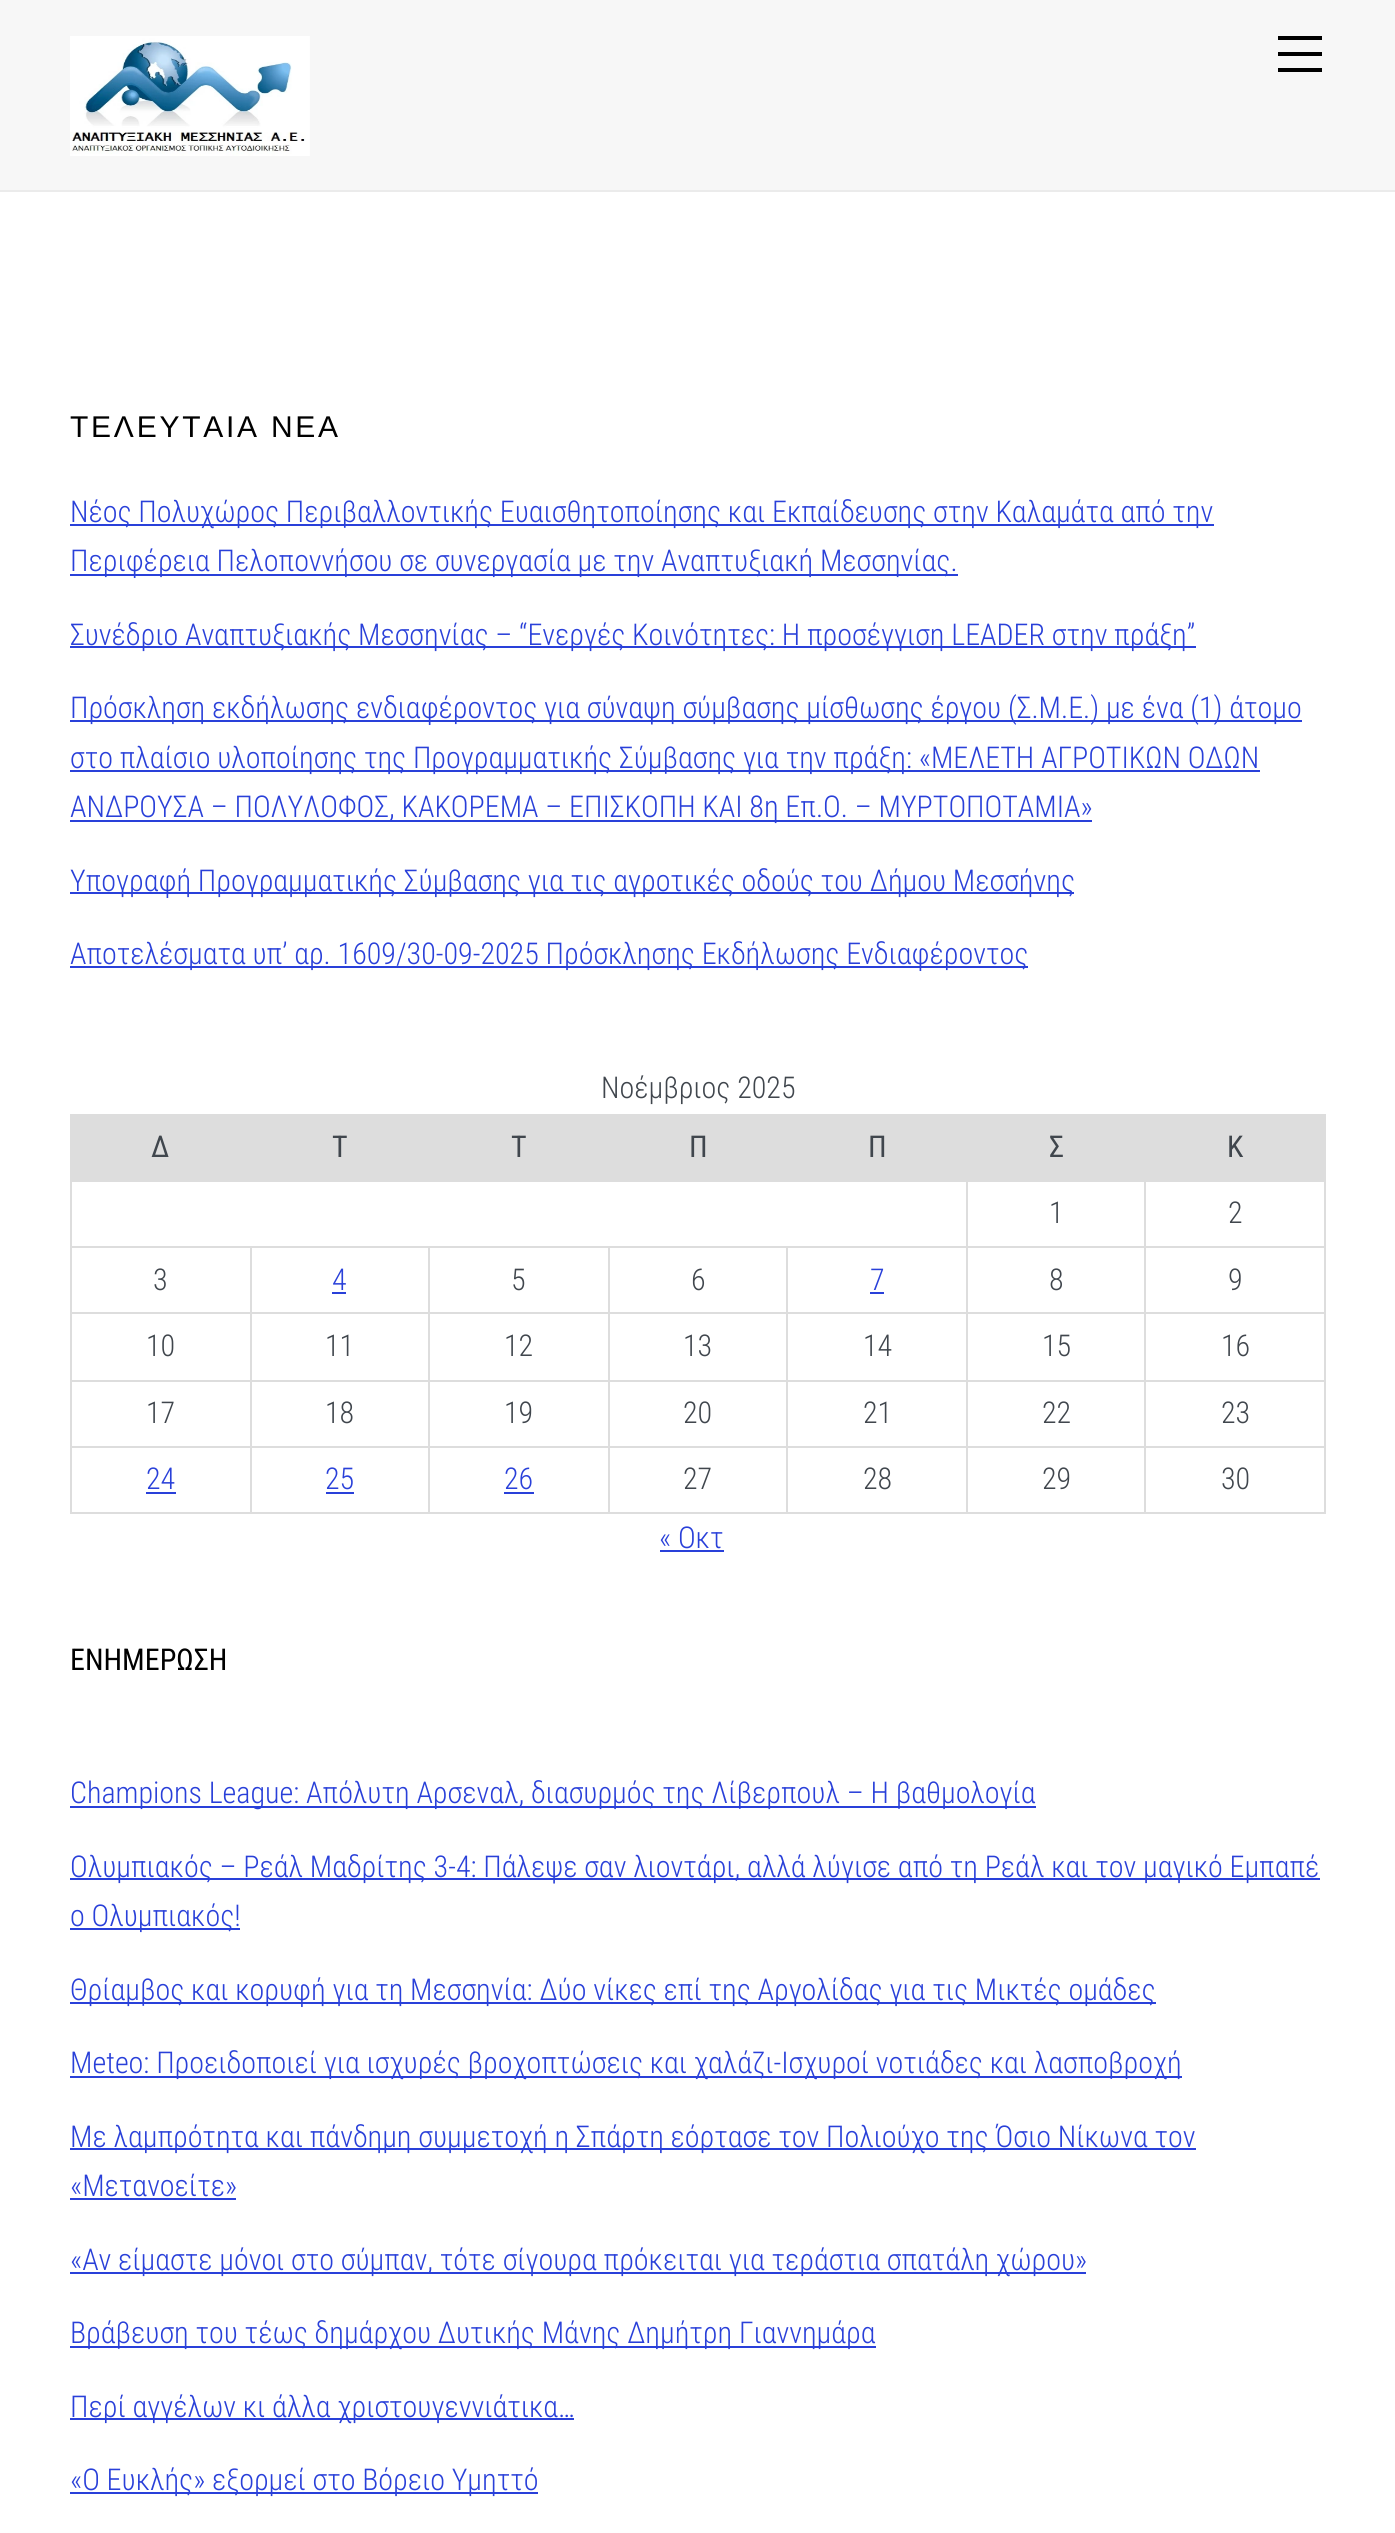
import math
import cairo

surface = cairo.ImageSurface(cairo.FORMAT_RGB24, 1395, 2533)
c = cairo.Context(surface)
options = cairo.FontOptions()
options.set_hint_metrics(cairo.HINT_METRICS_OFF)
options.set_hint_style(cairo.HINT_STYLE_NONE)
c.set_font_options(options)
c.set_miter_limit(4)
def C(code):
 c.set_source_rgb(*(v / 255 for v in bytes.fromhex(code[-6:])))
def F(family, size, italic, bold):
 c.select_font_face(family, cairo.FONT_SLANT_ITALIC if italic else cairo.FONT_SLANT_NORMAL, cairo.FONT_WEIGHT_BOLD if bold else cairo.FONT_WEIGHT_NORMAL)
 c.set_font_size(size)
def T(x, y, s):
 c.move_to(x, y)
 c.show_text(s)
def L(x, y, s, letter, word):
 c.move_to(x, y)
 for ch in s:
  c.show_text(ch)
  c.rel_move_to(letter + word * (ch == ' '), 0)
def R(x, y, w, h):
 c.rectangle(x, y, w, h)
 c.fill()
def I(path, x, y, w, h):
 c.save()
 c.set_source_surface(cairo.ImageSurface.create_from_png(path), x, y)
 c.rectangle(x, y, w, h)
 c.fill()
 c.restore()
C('ffffff')
c.paint()
C('f7f7f7')
R(0,0,1395,190)
C('ebebeb')
R(0,190,1395,2)
I('1.png',70,36,240,120)
C('000000')
R(1278,68,44,4)
R(1278,36,44,4)
R(1278,52,44,4)
F('Liberation Sans',30,0,0)
L(70,437,'ΤΕΛΕΥΤΑΙΑ ΝΕΑ',2.75,0)
C('2940d9')
R(70,524,1144,2)
F('Roboto Condensed Light',30,0,0)
T(70,522,'Νέος Πολυχώρος Περιβαλλοντικής Ευαισθητοποίησης και Εκπαίδευσης στην Καλαμάτα από την')
R(70,574,888,2)
T(70,571,'Περιφέρεια Πελοποννήσου σε συνεργασία με την Αναπτυξιακή Μεσσηνίας.')
R(70,646,1126,2)
T(70,645,'Συνέδριο Αναπτυξιακής Μεσσηνίας – “Ενεργές Κοινότητες: Η προσέγγιση LEADER στην πράξη”')
R(70,720,1232,2)
T(70,718,'Πρόσκληση εκδήλωσης ενδιαφέροντος για σύναψη σύμβασης μίσθωσης έργου (Σ.Μ.Ε.) με ένα (1) άτομο')
R(70,770,1190,2)
T(70,768,'στο πλαίσιο υλοποίησης της Προγραμματικής Σύμβασης για την πράξη: «ΜΕΛΕΤΗ ΑΓΡΟΤΙΚΩΝ ΟΔΩΝ')
R(70,820,1022,2)
T(70,817,'ΑΝΔΡΟΥΣΑ – ΠΟΛΥΛΟΦΟΣ, ΚΑΚΟΡΕΜΑ – ΕΠΙΣΚΟΠΗ ΚΑΙ 8η Επ.Ο. – ΜΥΡΤΟΠΟΤΑΜΙΑ»')
R(70,892,1004,2)
T(70,891,'Υπογραφή Προγραμματικής Σύμβασης για τις αγροτικές οδούς του Δήμου Μεσσήνης')
R(70,966,958,2)
T(70,964,'Αποτελέσματα υπ’ αρ. 1609/30-09-2025 Πρόσκλησης Εκδήλωσης Ενδιαφέροντος')
C('40464d')
T(601,1098,'Νοέμβριος 2025')
C('dddddd')
R(70,1114,1256,66)
F('Roboto Condensed',30,0,0)
C('40464d')
T(151,1157,'Δ')
T(332,1157,'Τ')
T(511,1157,'Τ')
T(689,1157,'Π')
T(868,1157,'Π')
T(1049,1157,'Σ')
T(1227,1157,'Κ')
C('dddddd')
R(1144,1180,182,2)
R(1144,1246,182,2)
R(1144,1312,182,2)
R(1144,1380,182,2)
R(1144,1446,182,2)
R(1324,1446,2,68)
R(1144,1512,182,2)
R(1144,1446,2,68)
R(966,1446,180,2)
R(1144,1380,2,68)
R(966,1380,180,2)
R(1144,1312,2,70)
R(966,1312,180,2)
R(1144,1246,2,68)
R(966,1246,180,2)
R(1144,1180,2,68)
R(966,1180,180,2)
R(966,1512,180,2)
R(966,1446,2,68)
R(786,1446,182,2)
R(966,1380,2,68)
R(786,1380,182,2)
R(966,1312,2,70)
R(786,1312,182,2)
R(966,1246,2,68)
R(786,1246,182,2)
R(966,1180,2,68)
R(70,1180,898,2)
R(786,1512,182,2)
R(786,1446,2,68)
R(608,1446,180,2)
R(786,1380,2,68)
R(608,1380,180,2)
R(786,1312,2,70)
R(608,1312,180,2)
R(786,1246,2,68)
R(608,1246,180,2)
R(608,1512,180,2)
R(608,1446,2,68)
R(428,1446,182,2)
R(608,1380,2,68)
R(428,1380,182,2)
R(608,1312,2,70)
R(428,1312,182,2)
R(608,1246,2,68)
R(428,1246,182,2)
R(428,1512,182,2)
R(428,1446,2,68)
R(250,1446,180,2)
R(428,1380,2,68)
R(250,1380,180,2)
R(428,1312,2,70)
R(250,1312,180,2)
R(428,1246,2,68)
R(250,1246,180,2)
R(250,1512,180,2)
R(250,1446,2,68)
R(70,1446,182,2)
R(250,1380,2,68)
R(70,1380,182,2)
R(250,1312,2,70)
R(70,1312,182,2)
R(250,1246,2,68)
R(70,1246,182,2)
R(70,1512,182,2)
R(70,1446,2,68)
R(70,1380,2,68)
R(70,1312,2,70)
R(70,1246,2,68)
R(70,1180,2,68)
F('Roboto Condensed Light',30,0,0)
C('40464d')
T(1049,1223,'1')
C('dddddd')
R(1324,1380,2,68)
R(1324,1312,2,70)
R(1324,1246,2,68)
R(1324,1180,2,68)
C('40464d')
T(1228,1223,'2')
T(153,1290,'3')
C('2940d9')
T(332,1290,'4')
R(332,1292,14,2)
C('40464d')
T(511,1290,'5')
T(691,1290,'6')
C('2940d9')
T(870,1290,'7')
R(870,1292,14,2)
C('40464d')
T(1049,1290,'8')
T(1228,1290,'9')
T(146,1356,'10')
T(325,1356,'11')
T(504,1356,'12')
T(683,1356,'13')
T(863,1356,'14')
T(1042,1356,'15')
T(1221,1356,'16')
T(146,1423,'17')
T(325,1423,'18')
T(504,1423,'19')
T(683,1423,'20')
T(863,1423,'21')
T(1042,1423,'22')
T(1221,1423,'23')
C('2940d9')
T(146,1489,'24')
R(146,1492,30,2)
T(325,1489,'25')
R(326,1492,28,2)
T(504,1489,'26')
R(504,1492,30,2)
C('40464d')
T(683,1489,'27')
T(863,1489,'28')
T(1042,1489,'29')
T(1221,1489,'30')
C('2940d9')
T(659,1548,'« Οκτ')
R(660,1550,64,2)
F('Roboto Condensed',30,0,0)
C('000000')
T(70,1670,'ΕΝΗΜΕΡΩΣΗ')
C('2940d9')
R(70,1806,966,2)
F('Roboto Condensed Light',30,0,0)
T(70,1803,'Champions League: Απόλυτη Αρσεναλ, διασυρμός της Λίβερπουλ – H βαθμολογία')
R(70,1878,1250,2)
T(70,1877,'Ολυμπιακός – Ρεάλ Μαδρίτης 3-4: Πάλεψε σαν λιοντάρι, αλλά λύγισε από τη Ρεάλ και τον μαγικό Εμπαπέ')
R(70,1928,170,2)
T(70,1926,'ο Ολυμπιακός!')
R(70,2002,1086,2)
T(70,2000,'Θρίαμβος και κορυφή για τη Μεσσηνία: Δύο νίκες επί της Αργολίδας για τις Μικτές ομάδες')
R(70,2076,1112,2)
T(70,2073,'Meteo: Προειδοποιεί για ισχυρές βροχοπτώσεις και χαλάζι-Ισχυροί νοτιάδες και λασποβροχή')
R(70,2148,1126,2)
T(70,2147,'Με λαμπρότητα και πάνδημη συμμετοχή η Σπάρτη εόρτασε τον Πολιούχο της Όσιο Νίκωνα τον')
T(70,2196,'«Μετανοείτε»')
R(70,2198,166,2)
R(70,2272,1016,2)
T(70,2270,'«Αν είμαστε μόνοι στο σύμπαν, τότε σίγουρα πρόκειται για τεράστια σπατάλη χώρου»')
R(70,2346,806,2)
T(70,2343,'Βράβευση του τέως δημάρχου Δυτικής Μάνης Δημήτρη Γιαννημάρα')
R(70,2418,504,2)
T(70,2417,'Περί αγγέλων κι άλλα χριστουγεννιάτικα…')
R(70,2492,468,2)
T(70,2490,'«Ο Ευκλής» εξορμεί στο Βόρειο Υμηττό')
surface.write_to_png('o.png')
